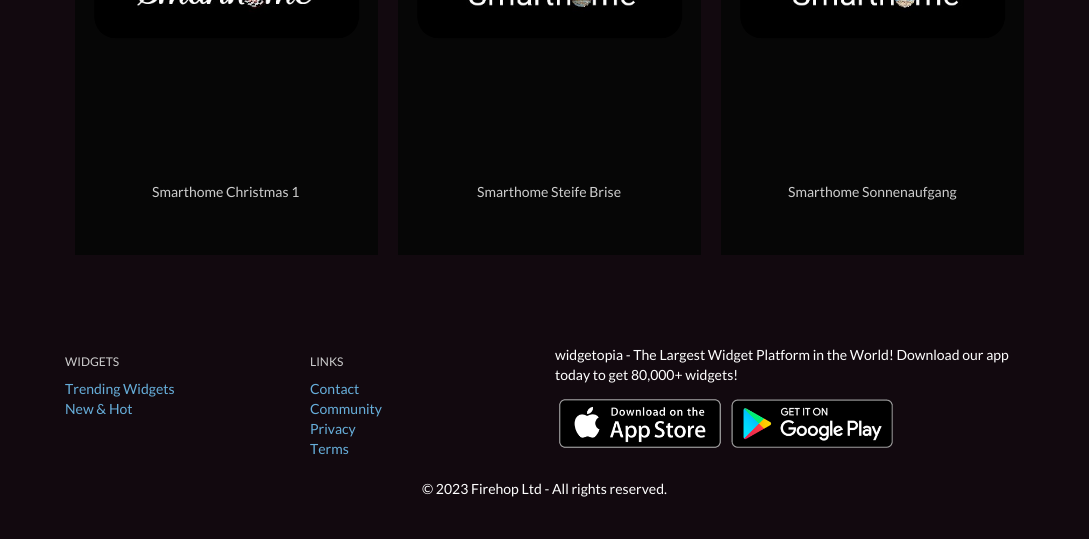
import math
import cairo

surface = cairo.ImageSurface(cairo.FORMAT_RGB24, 1089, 539)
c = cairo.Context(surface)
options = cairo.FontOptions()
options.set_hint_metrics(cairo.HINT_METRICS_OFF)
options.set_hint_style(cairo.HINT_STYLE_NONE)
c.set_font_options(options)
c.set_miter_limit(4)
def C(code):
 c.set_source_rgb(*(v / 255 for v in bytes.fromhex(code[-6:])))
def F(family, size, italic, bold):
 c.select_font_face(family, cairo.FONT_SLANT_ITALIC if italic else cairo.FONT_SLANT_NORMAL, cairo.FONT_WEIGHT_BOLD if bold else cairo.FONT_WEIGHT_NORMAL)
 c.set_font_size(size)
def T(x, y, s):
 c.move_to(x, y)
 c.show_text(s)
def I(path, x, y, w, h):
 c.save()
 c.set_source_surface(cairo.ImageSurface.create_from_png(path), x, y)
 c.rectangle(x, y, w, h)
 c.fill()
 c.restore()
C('12090f')
c.paint()
I('2.png',94,0,266,39)
I('1.png',75,0,303,255)
F('Lato',14,0,0)
C('cccccc')
T(152,197,'Smarthome Christmas 1')
I('4.png',417,0,266,39)
I('3.png',398,0,303,255)
T(477,197,'Smarthome Steife Brise')
I('6.png',740,0,266,39)
I('5.png',721,0,303,255)
T(788,197,'Smarthome Sonnenaufgang')
F('Lato',12,0,0)
T(65,366,'WIDGETS')
F('Lato',14,0,0)
C('66aeda')
T(65,394,'Trending Widgets')
T(65,414,'New & Hot')
F('Lato',12,0,0)
C('cccccc')
T(310,366,'LINKS')
F('Lato',14,0,0)
C('66aeda')
T(310,394,'Contact')
T(310,414,'Community')
T(310,434,'Privacy')
T(310,454,'Terms')
C('ffffff')
T(555,360,'widgetopia - The Largest Widget Platform in the World! Download our app')
T(555,380,'today to get 80,000+ widgets!')
I('7.png',559,399,162,49)
I('8.png',731,399,162,49)
T(422,494,'© 2023 Firehop Ltd - All rights reserved.')
surface.write_to_png('o.png')
